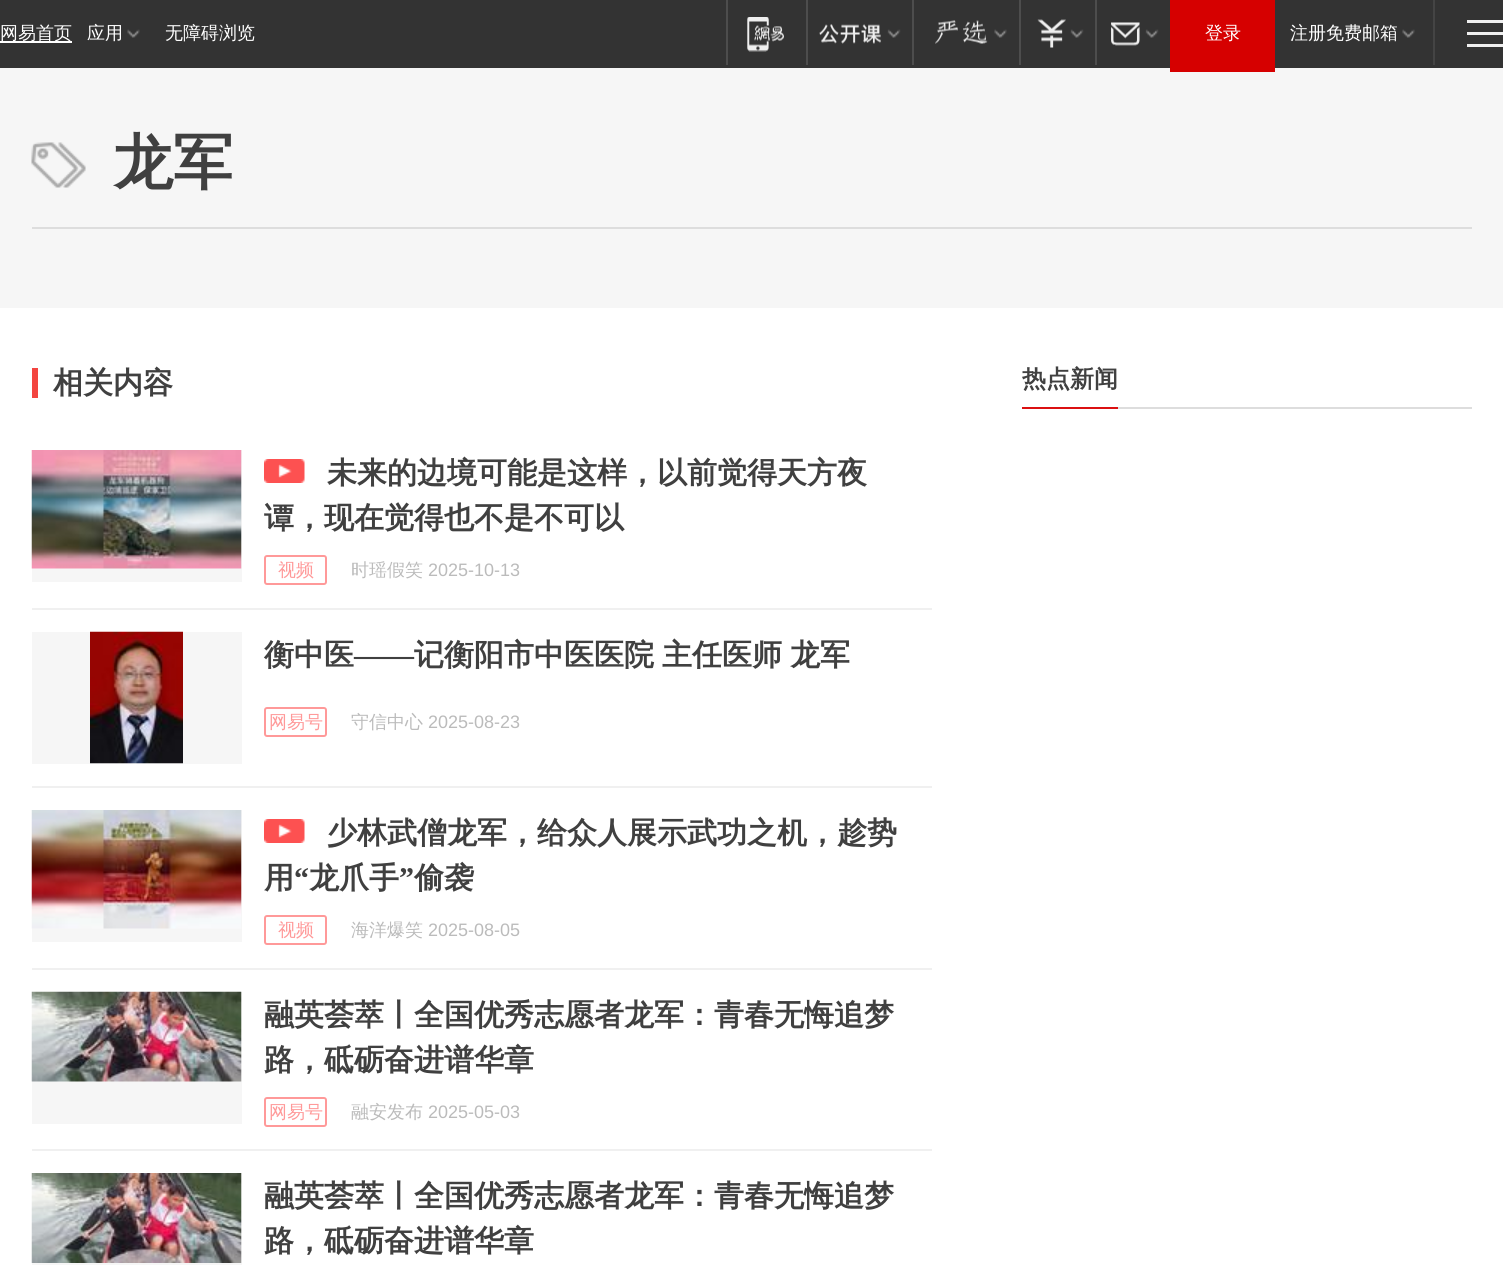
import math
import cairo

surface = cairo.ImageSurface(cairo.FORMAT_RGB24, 1503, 1265)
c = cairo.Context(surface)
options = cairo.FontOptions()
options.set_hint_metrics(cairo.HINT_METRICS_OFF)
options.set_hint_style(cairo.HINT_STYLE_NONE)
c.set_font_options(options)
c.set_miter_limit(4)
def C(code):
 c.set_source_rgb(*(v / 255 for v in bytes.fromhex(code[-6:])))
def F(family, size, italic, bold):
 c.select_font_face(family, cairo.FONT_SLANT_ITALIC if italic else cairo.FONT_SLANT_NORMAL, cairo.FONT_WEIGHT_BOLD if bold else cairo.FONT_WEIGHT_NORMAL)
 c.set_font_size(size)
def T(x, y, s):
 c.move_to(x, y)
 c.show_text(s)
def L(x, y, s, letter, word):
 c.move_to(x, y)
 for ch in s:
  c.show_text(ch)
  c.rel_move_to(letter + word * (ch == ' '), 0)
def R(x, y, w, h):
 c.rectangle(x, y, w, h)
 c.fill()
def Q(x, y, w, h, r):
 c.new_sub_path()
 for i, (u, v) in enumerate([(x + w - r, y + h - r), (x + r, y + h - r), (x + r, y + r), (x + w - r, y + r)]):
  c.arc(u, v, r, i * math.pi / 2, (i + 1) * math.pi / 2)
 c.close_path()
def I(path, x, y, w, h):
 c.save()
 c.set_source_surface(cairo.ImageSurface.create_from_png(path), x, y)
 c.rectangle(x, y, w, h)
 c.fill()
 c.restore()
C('ffffff')
c.paint()
C('333333')
R(0,0,1503,68)
C('ffffff')
R(0,41,72,2)
F('WenQuanYi Zen Hei Medium',18,0,0)
T(0,39,'网易首页')
T(87,39,'应用')
I('1.png',127,29,13,9)
T(165,39,'无障碍浏览')
C('4d4d4d')
R(726,0,2,65)
I('2.png',747,17,37,35)
R(806,0,2,65)
I('3.png',819,24,62,20)
I('4.png',887,29,14,9)
R(912,0,2,65)
I('5.png',935,20,53,24)
I('1.png',994,29,13,9)
R(1019,0,2,65)
I('6.png',1037,19,29,29)
I('4.png',1070,29,14,9)
R(1095,0,2,65)
I('7.png',1111,22,29,24)
I('4.png',1145,29,14,9)
C('f6f6f6')
R(0,68,1503,240)
C('d60000')
R(1170,0,105,72)
C('ffffff')
T(1205,39,'登录')
T(1290,39,'注册免费邮箱')
I('1.png',1402,29,13,9)
C('444444')
R(1433,0,2,65)
C('efefef')
R(1467,20,36,3)
R(1467,32,36,3)
R(1467,44,36,3)
I('8.png',31,142,55,46)
C('dddddd')
R(32,227,1440,2)
F('WenQuanYi Zen Hei',60,0,1)
C('404040')
T(113,183,'龙军')
C('f34540')
R(32,368,6,30)
F('WenQuanYi Zen Hei',30,0,1)
C('404040')
T(53,393,'相关内容')
C('f0f0f0')
R(32,608,900,2)
C('f6f6f6')
R(32,450,210,132)
I('9.png',31,450,211,119)
I('10.png',264,459,41,24)
C('404040')
T(327,483,'未来的边境可能是这样，以前觉得天方夜')
T(264,528,'谭，现在觉得也不是不可以')
Q(265,556,61,28,2)
C('ff9999')
c.stroke()
F('WenQuanYi Zen Hei Medium',18,0,0)
T(278,576,'视频')
C('bbbbbb')
T(351,576,'时瑶假笑')
F('Liberation Sans',18,0,0)
T(428,576,'2025-10-13')
C('f0f0f0')
R(32,786,900,2)
C('f6f6f6')
R(32,632,210,132)
I('11.png',90,631,93,133)
F('WenQuanYi Zen Hei',30,0,1)
C('404040')
T(264,665,'衡中医')
F('Liberation Serif',30,0,1)
T(354,665,'——')
F('WenQuanYi Zen Hei',30,0,1)
L(414,665,'记衡阳市中医医院 主任医师 龙军',0,-1)
Q(265,708,61,28,2)
C('ff9999')
c.stroke()
F('WenQuanYi Zen Hei Medium',18,0,0)
T(269,728,'网易号')
C('bbbbbb')
T(351,728,'守信中心')
F('Liberation Sans',18,0,0)
T(428,728,'2025-08-23')
C('f0f0f0')
R(32,968,900,2)
C('f6f6f6')
R(32,810,210,132)
I('12.png',31,810,211,119)
I('10.png',264,819,41,24)
F('WenQuanYi Zen Hei',30,0,1)
C('404040')
T(327,843,'少林武僧龙军，给众人展示武功之机，趁势')
T(264,888,'用')
F('Liberation Serif',30,0,1)
T(294,888,'“')
F('WenQuanYi Zen Hei',30,0,1)
T(309,888,'龙爪手')
F('Liberation Serif',30,0,1)
T(399,888,'”')
F('WenQuanYi Zen Hei',30,0,1)
T(414,888,'偷袭')
Q(265,916,61,28,2)
C('ff9999')
c.stroke()
F('WenQuanYi Zen Hei Medium',18,0,0)
T(278,936,'视频')
C('bbbbbb')
T(351,936,'海洋爆笑')
F('Liberation Sans',18,0,0)
T(428,936,'2025-08-05')
C('f0f0f0')
R(32,1149,900,2)
C('f6f6f6')
R(32,992,210,132)
I('13.png',31,991,211,91)
F('WenQuanYi Zen Hei',30,0,1)
C('404040')
T(264,1025,'融英荟萃丨全国优秀志愿者龙军：青春无悔追梦')
T(264,1070,'路，砥砺奋进谱华章')
Q(265,1098,61,28,2)
C('ff9999')
c.stroke()
F('WenQuanYi Zen Hei Medium',18,0,0)
T(269,1118,'网易号')
C('bbbbbb')
T(351,1118,'融安发布')
F('Liberation Sans',18,0,0)
T(428,1118,'2025-05-03')
C('f6f6f6')
R(32,1173,210,92)
I('14.png',31,1173,211,90)
F('WenQuanYi Zen Hei',30,0,1)
C('404040')
T(264,1206,'融英荟萃丨全国优秀志愿者龙军：青春无悔追梦')
T(264,1251,'路，砥砺奋进谱华章')
C('dddddd')
R(1118,407,354,2)
F('WenQuanYi Zen Hei',24,0,1)
C('404040')
T(1022,387,'热点新闻')
C('db1011')
R(1022,407,96,2)
surface.write_to_png('o.png')
